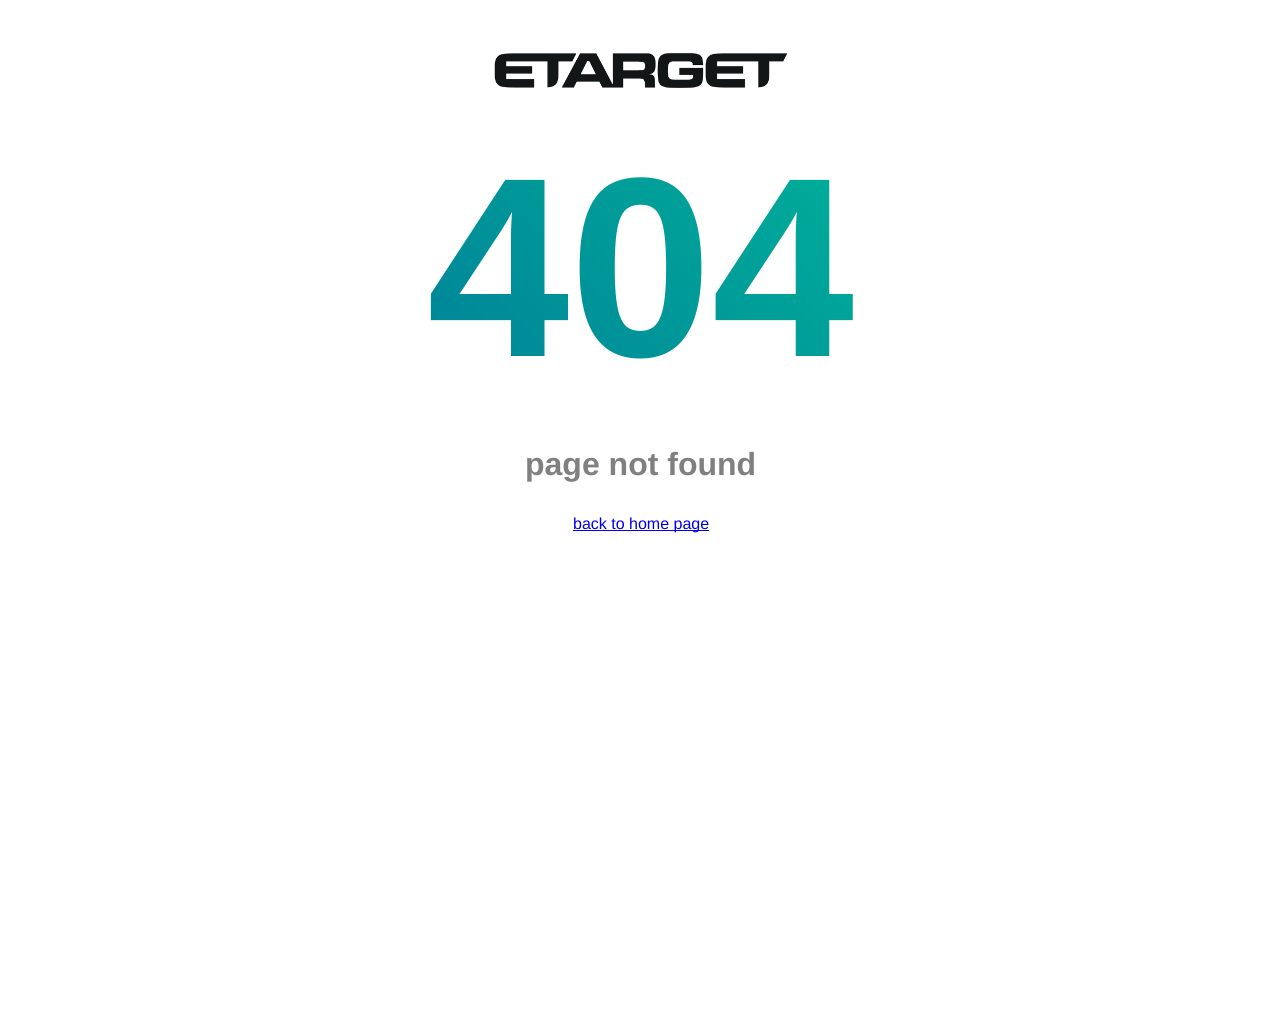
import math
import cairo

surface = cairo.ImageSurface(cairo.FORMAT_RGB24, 1282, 1026)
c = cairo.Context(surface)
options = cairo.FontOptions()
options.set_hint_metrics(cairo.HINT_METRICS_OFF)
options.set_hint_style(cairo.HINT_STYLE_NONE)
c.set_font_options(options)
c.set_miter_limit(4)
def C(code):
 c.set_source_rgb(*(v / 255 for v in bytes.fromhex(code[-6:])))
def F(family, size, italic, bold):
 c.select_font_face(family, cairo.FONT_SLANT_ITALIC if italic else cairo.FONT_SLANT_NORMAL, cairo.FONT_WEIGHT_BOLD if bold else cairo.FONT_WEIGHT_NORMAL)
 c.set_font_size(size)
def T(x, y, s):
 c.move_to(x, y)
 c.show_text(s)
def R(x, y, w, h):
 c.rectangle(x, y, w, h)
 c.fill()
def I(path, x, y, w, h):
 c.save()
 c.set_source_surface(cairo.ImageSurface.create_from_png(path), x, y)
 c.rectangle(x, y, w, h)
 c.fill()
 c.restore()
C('ffffff')
c.paint()
I('1.png',494,53,294,35)
F('Liberation Sans',256,0,1)
gradient = cairo.LinearGradient(251,657,1031,-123)
gradient.add_color_stop_rgba(0,0,0.4,0.6,1)
gradient.add_color_stop_rgba(1,0,0.8,0.6,1)
c.set_source(gradient)
T(427,356,'404')
F('Liberation Sans',32,0,1)
C('808080')
T(525,475,'page not found')
C('0000ee')
R(573,530,136,1)
F('Liberation Sans',16,0,0)
T(573,529,'back to home page')
surface.write_to_png('o.png')
